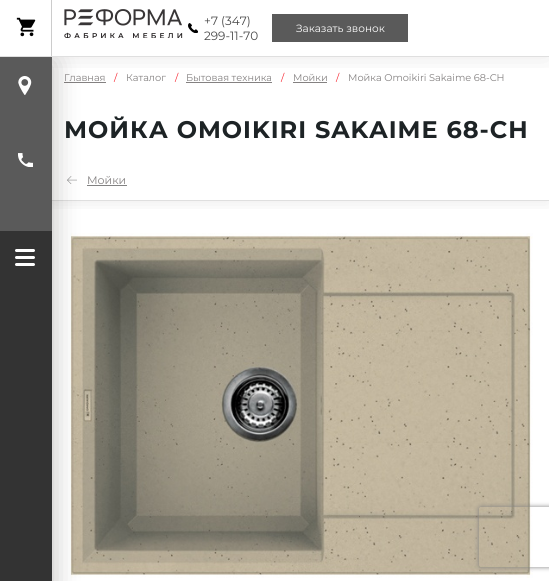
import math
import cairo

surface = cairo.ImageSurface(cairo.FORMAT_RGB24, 549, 581)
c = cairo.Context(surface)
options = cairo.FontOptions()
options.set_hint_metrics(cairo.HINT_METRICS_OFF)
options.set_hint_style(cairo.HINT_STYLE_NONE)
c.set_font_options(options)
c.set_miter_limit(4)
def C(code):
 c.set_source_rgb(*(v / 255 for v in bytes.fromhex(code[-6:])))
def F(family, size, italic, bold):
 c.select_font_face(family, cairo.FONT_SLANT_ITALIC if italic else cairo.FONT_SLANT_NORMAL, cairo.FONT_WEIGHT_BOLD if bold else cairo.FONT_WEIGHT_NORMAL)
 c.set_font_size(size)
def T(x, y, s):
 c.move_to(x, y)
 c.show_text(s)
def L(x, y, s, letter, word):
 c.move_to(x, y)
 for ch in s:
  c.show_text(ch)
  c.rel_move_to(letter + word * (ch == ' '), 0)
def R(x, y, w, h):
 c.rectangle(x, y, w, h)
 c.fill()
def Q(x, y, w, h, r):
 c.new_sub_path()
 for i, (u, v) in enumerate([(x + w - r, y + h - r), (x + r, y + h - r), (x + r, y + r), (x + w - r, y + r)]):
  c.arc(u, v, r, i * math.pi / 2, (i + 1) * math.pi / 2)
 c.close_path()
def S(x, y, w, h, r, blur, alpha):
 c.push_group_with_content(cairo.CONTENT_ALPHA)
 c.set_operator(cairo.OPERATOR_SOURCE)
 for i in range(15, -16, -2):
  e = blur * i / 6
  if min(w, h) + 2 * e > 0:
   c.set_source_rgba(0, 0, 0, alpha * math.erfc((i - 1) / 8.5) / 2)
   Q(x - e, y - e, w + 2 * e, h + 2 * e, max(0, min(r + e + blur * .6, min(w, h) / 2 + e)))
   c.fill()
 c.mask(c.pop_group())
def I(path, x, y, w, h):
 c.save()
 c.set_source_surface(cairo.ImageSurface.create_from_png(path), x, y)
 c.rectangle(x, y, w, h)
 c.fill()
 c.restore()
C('ffffff')
c.paint()
c.save()
c.rectangle(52,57,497,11)
c.clip()
C('211e16')
S(0,0,549,57,0,13.5,.1)
c.restore()
C('dfdfdf')
R(0,56,549,1)
I('1.png',16,17,20,20)
C('cccccc')
R(51,0,1,56)
I('2.png',64,9,119,29)
I('3.png',188,23,10,10)
F('Montserrat',12,0,0)
C('4a4a4a')
T(204,25,'+7 (347)')
T(204,40,'299-11-70')
C('5a5a5a')
R(272,14,136,28)
F('Montserrat',10.5,0,0)
C('ffffff')
T(296,32,'Заказать звонок')
c.save()
c.rectangle(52,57,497,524)
c.clip()
c.rectangle(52,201,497,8)
c.clip()
C('211e16')
S(52,57,497,144,0,10,.1)
c.restore()
C('dfdfdf')
R(52,200,497,1)
C('848181')
R(64,82,42,1)
I('6.png',67,176,10,8)
C('828282')
R(87,185,40,1)
I('7.png',70,233,463,345)
c.save()
c.rectangle(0,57,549,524)
c.clip()
C('211e16')
S(0,63,52,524,0,13.5,.3)
c.restore()
C('333333')
R(0,231,52,350)
C('5a5a5a')
R(0,57,52,174)
I('4.png',18,76,14,19)
I('5.png',18,153,15,14)
C('ffffff')
Q(15,249,20,3,1.5)
c.fill()
Q(15,256,20,3,1.5)
c.fill()
Q(15,263,20,3,1.5)
c.fill()
F('Montserrat',9.75,0,0)
C('848181')
T(64,81,'Главная')
C('ffffff')
c.new_path()
c.move_to(116,72)
c.curve_to(117,72,118,74.5,118,77.5)
c.curve_to(118,80.5,117,83,116,83)
c.curve_to(115,83,114,80.5,114,77.5)
c.curve_to(114,74.5,115,72,116,72)
c.close_path()
c.fill()
C('f7212c')
T(114,81,'/')
C('848181')
T(126,81,'Каталог')
C('ffffff')
c.new_path()
c.move_to(176.5,72)
c.curve_to(177.5,72,178,74.5,178,77.5)
c.curve_to(178,80.5,177.5,83,176.5,83)
c.curve_to(175.5,83,175,80.5,175,77.5)
c.curve_to(175,74.5,175.5,72,176.5,72)
c.close_path()
c.fill()
C('f7212c')
T(175,81,'/')
C('848181')
T(186,81,'Бытовая техника')
R(186,82,86,1)
C('ffffff')
c.new_path()
c.move_to(282.5,72)
c.curve_to(283.5,72,284,74.5,284,77.5)
c.curve_to(284,80.5,283.5,83,282.5,83)
c.curve_to(281.5,83,281,80.5,281,77.5)
c.curve_to(281,74.5,281.5,72,282.5,72)
c.close_path()
c.fill()
C('f7212c')
T(281,81,'/')
C('848181')
T(293,81,'Мойки')
R(293,82,34,1)
C('ffffff')
c.new_path()
c.move_to(337.5,72)
c.curve_to(338.5,72,339,74.5,339,77.5)
c.curve_to(339,80.5,338.5,83,337.5,83)
c.curve_to(336.5,83,336,80.5,336,77.5)
c.curve_to(336,74.5,336.5,72,337.5,72)
c.close_path()
c.fill()
C('f7212c')
T(336,81,'/')
C('848181')
T(348,81,'Мойка Omoikiri Sakaime 68-СH')
F('Montserrat',24,0,1)
C('1d2325')
L(64,138,'МОЙКА OMOIKIRI SAKAIME 68-СH',1,0)
F('Montserrat',11,0,0)
C('848181')
T(87,184,'Мойки')
c.save()
c.set_fill_rule(cairo.FILL_RULE_EVEN_ODD)
c.new_path()
c.move_to(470,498)
c.line_to(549,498)
c.line_to(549,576)
c.line_to(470,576)
c.close_path()
c.move_to(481,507)
c.line_to(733,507)
c.curve_to(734,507,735,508,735,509)
c.line_to(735,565)
c.curve_to(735,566,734,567,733,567)
c.line_to(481,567)
c.curve_to(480,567,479,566,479,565)
c.line_to(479,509)
c.curve_to(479,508,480,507,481,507)
c.close_path()
c.clip()
C('808080')
S(479,507,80,60,2,2.5,1)
c.restore()
surface.write_to_png('o.png')
